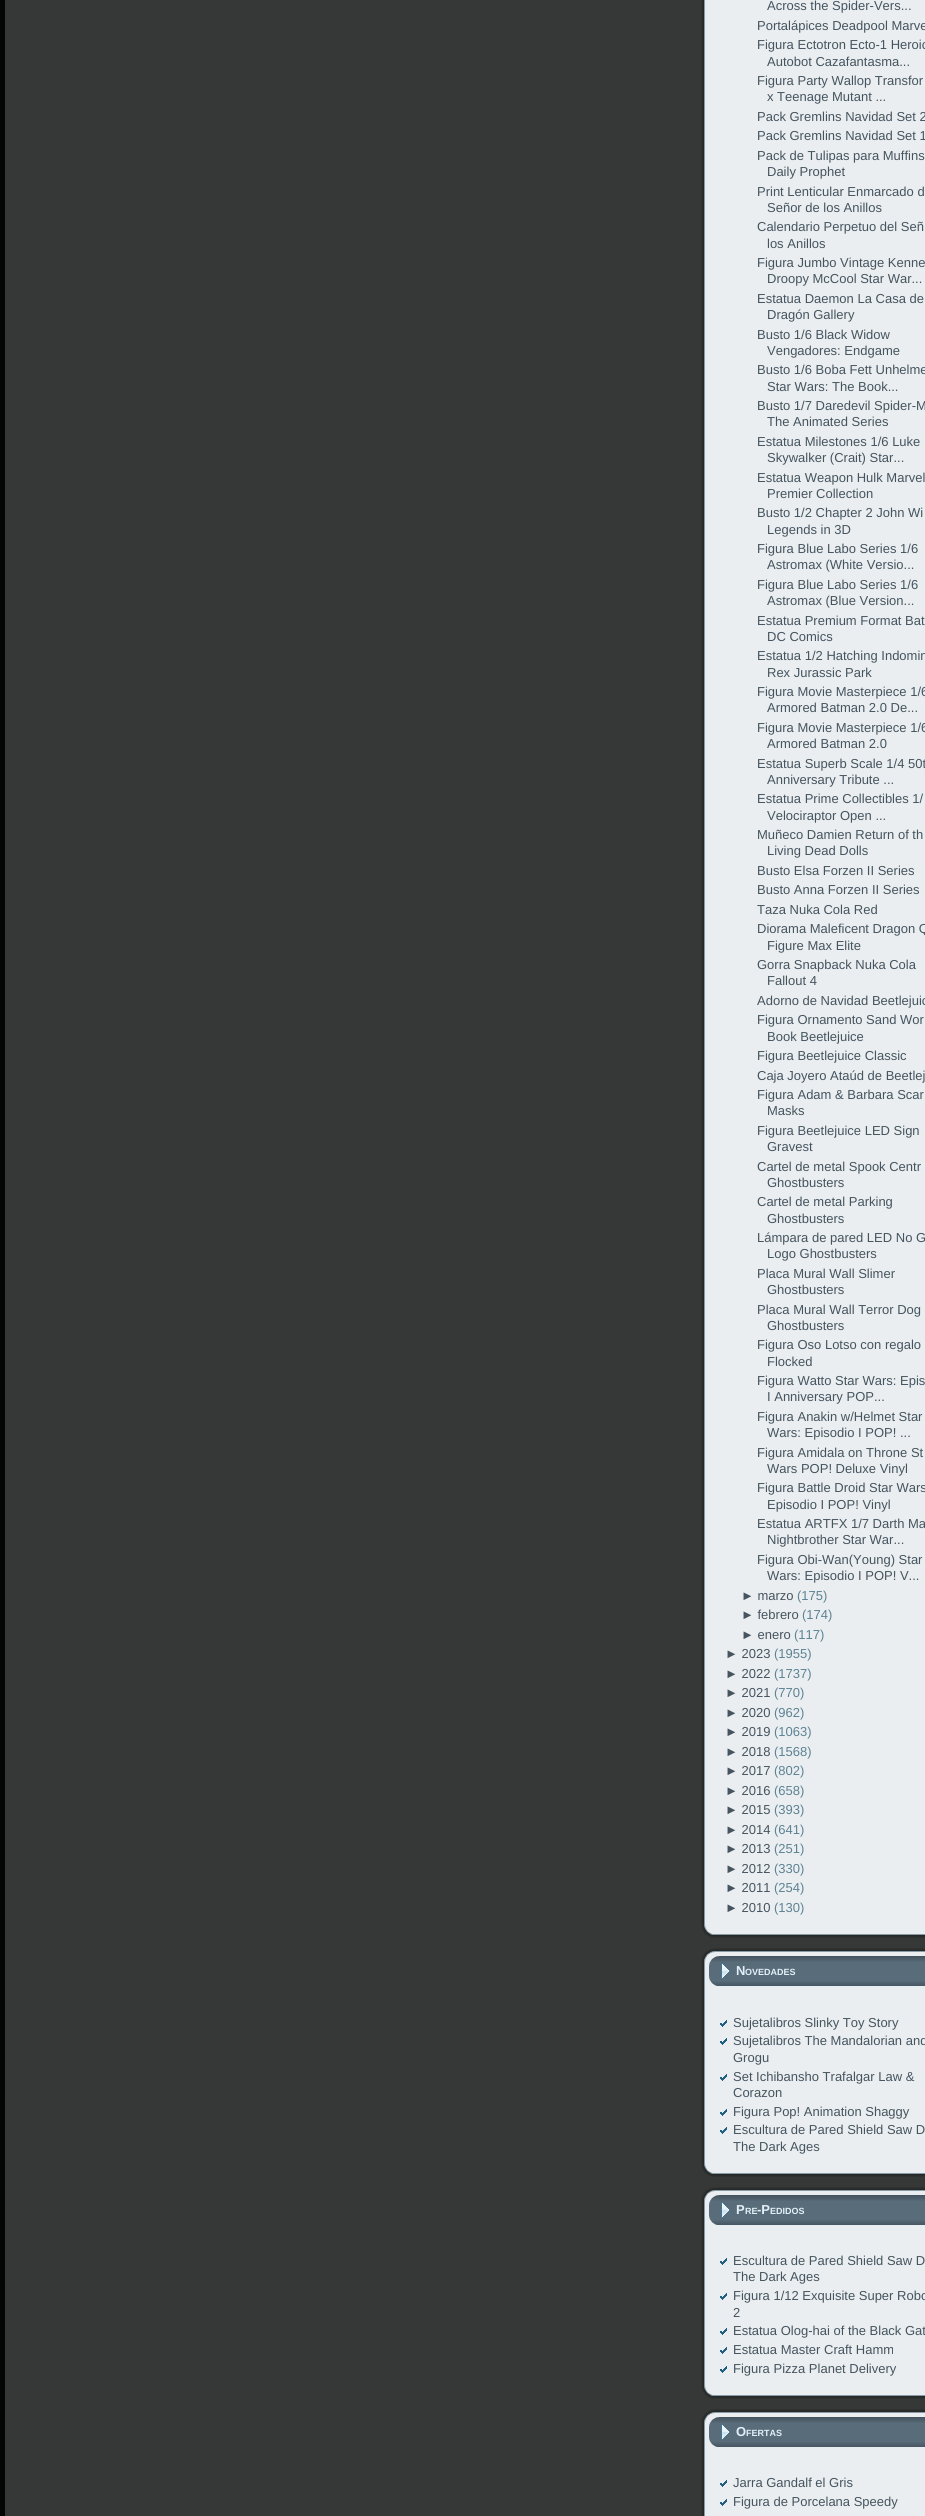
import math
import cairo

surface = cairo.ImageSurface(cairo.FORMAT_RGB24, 925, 2516)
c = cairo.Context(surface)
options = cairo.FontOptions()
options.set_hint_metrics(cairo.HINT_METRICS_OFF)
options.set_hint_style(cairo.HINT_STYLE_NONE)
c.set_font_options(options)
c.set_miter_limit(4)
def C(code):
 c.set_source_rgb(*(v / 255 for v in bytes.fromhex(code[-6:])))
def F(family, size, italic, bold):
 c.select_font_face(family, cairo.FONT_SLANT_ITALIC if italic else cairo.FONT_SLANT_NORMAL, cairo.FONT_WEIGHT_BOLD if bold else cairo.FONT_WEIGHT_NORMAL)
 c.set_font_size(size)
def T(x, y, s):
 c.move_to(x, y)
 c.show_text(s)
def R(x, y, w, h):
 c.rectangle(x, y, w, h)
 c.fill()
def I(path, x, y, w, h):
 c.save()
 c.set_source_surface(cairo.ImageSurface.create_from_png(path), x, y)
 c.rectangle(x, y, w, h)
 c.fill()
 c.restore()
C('040606')
c.paint()
C('363838')
R(5,0,920,2516)
I('1.png',701,0,23,1915)
C('eaeef0')
R(724,0,201,1915)
F('Liberation Sans',13,0,0)
C('45545f')
T(767,10,'Across the Spider-Vers...')
T(757,30,'Portalápices Deadpool Marve')
T(757,49,'Figura Ectotron Ecto-1 Heroic')
T(767,66,'Autobot Cazafantasma...')
T(757,85,'Figura Party Wallop Transfor')
T(767,101,'x Teenage Mutant ...')
T(757,121,'Pack Gremlins Navidad Set 2')
T(757,140,'Pack Gremlins Navidad Set 1')
T(757,160,'Pack de Tulipas para Muffins')
T(767,176,'Daily Prophet')
T(757,196,'Print Lenticular Enmarcado d')
T(767,212,'Señor de los Anillos')
T(757,231,'Calendario Perpetuo del Señ')
T(767,248,'los Anillos')
T(757,267,'Figura Jumbo Vintage Kenne')
T(767,283,'Droopy McCool Star War...')
T(757,303,'Estatua Daemon La Casa de')
T(767,319,'Dragón Gallery')
T(757,339,'Busto 1/6 Black Widow')
T(767,355,'Vengadores: Endgame')
T(757,374,'Busto 1/6 Boba Fett Unhelme')
T(767,391,'Star Wars: The Book...')
T(757,410,'Busto 1/7 Daredevil Spider-M')
T(767,426,'The Animated Series')
T(757,446,'Estatua Milestones 1/6 Luke')
T(767,462,'Skywalker (Crait) Star...')
T(757,482,'Estatua Weapon Hulk Marvel')
T(767,498,'Premier Collection')
T(757,517,'Busto 1/2 Chapter 2 John Wi')
T(767,534,'Legends in 3D')
T(757,553,'Figura Blue Labo Series 1/6')
T(767,569,'Astromax (White Versio...')
T(757,589,'Figura Blue Labo Series 1/6')
T(767,605,'Astromax (Blue Version...')
T(757,625,'Estatua Premium Format Bat')
T(767,641,'DC Comics')
T(757,660,'Estatua 1/2 Hatching Indomin')
T(767,677,'Rex Jurassic Park')
T(757,696,'Figura Movie Masterpiece 1/6')
T(767,712,'Armored Batman 2.0 De...')
T(757,732,'Figura Movie Masterpiece 1/6')
T(767,748,'Armored Batman 2.0')
T(757,768,'Estatua Superb Scale 1/4 50t')
T(767,784,'Anniversary Tribute ...')
T(757,803,'Estatua Prime Collectibles 1/')
T(767,820,'Velociraptor Open ...')
T(757,839,'Muñeco Damien Return of th')
T(767,855,'Living Dead Dolls')
T(757,875,'Busto Elsa Forzen II Series')
T(757,894,'Busto Anna Forzen II Series')
T(757,914,'Taza Nuka Cola Red')
T(757,933,'Diorama Maleficent Dragon Q')
T(767,950,'Figure Max Elite')
T(757,969,'Gorra Snapback Nuka Cola')
T(767,985,'Fallout 4')
T(757,1005,'Adorno de Navidad Beetlejuic')
T(757,1024,'Figura Ornamento Sand Wor')
T(767,1041,'Book Beetlejuice')
T(757,1060,'Figura Beetlejuice Classic')
T(757,1080,'Caja Joyero Ataúd de Beetlej')
T(757,1099,'Figura Adam & Barbara Scar')
T(767,1115,'Masks')
T(757,1135,'Figura Beetlejuice LED Sign')
T(767,1151,'Gravest')
T(757,1171,'Cartel de metal Spook Centr')
T(767,1187,'Ghostbusters')
T(757,1206,'Cartel de metal Parking')
T(767,1223,'Ghostbusters')
T(757,1242,'Lámpara de pared LED No G')
T(767,1258,'Logo Ghostbusters')
T(757,1278,'Placa Mural Wall Slimer')
T(767,1294,'Ghostbusters')
T(757,1314,'Placa Mural Wall Terror Dog')
T(767,1330,'Ghostbusters')
T(757,1349,'Figura Oso Lotso con regalo')
T(767,1366,'Flocked')
T(757,1385,'Figura Watto Star Wars: Epis')
T(767,1401,'I Anniversary POP...')
T(757,1421,'Figura Anakin w/Helmet Star')
T(767,1437,'Wars: Episodio I POP! ...')
T(757,1457,'Figura Amidala on Throne St')
T(767,1473,'Wars POP! Deluxe Vinyl')
T(757,1492,'Figura Battle Droid Star Wars')
T(767,1509,'Episodio I POP! Vinyl')
T(757,1528,'Estatua ARTFX 1/7 Darth Ma')
T(767,1544,'Nightbrother Star War...')
T(757,1564,'Figura Obi-Wan(Young) Star')
T(767,1580,'Wars: Episodio I POP! V...')
T(741,1600,'► marzo')
C('5c8293')
T(797,1600,'(175)')
C('45545f')
T(741,1619,'► febrero')
C('5c8293')
T(802,1619,'(174)')
C('45545f')
T(741,1639,'► enero')
C('5c8293')
T(794,1639,'(117)')
C('45545f')
T(725,1658,'► 2023')
C('5c8293')
T(774,1658,'(1955)')
C('45545f')
T(725,1678,'► 2022')
C('5c8293')
T(774,1678,'(1737)')
C('45545f')
T(725,1697,'► 2021')
C('5c8293')
T(774,1697,'(770)')
C('45545f')
T(725,1717,'► 2020')
C('5c8293')
T(774,1717,'(962)')
C('45545f')
T(725,1736,'► 2019')
C('5c8293')
T(774,1736,'(1063)')
C('45545f')
T(725,1756,'► 2018')
C('5c8293')
T(774,1756,'(1568)')
C('45545f')
T(725,1775,'► 2017')
C('5c8293')
T(774,1775,'(802)')
C('45545f')
T(725,1795,'► 2016')
C('5c8293')
T(774,1795,'(658)')
C('45545f')
T(725,1814,'► 2015')
C('5c8293')
T(774,1814,'(393)')
C('45545f')
T(725,1834,'► 2014')
C('5c8293')
T(774,1834,'(641)')
C('45545f')
T(725,1853,'► 2013')
C('5c8293')
T(774,1853,'(251)')
C('45545f')
T(725,1873,'► 2012')
C('5c8293')
T(774,1873,'(330)')
C('45545f')
T(725,1892,'► 2011')
C('5c8293')
T(774,1892,'(254)')
C('45545f')
T(725,1912,'► 2010')
C('5c8293')
T(774,1912,'(130)')
I('2.png',701,1915,23,23)
I('3.png',724,1915,201,23)
I('4.png',701,1948,23,23)
I('5.png',724,1948,201,8)
I('6.png',701,1971,23,183)
I('7.png',709,1956,216,30)
I('8.png',721,1963,9,16)
F('Liberation Sans',13,0,1)
C('e3f0f8')
T(736,1975,'N')
F('Liberation Sans',9,0,1)
T(745,1975,'OVEDADES')
C('eaeef0')
R(724,1986,201,168)
I('9.png',720,2020,7,7)
F('Liberation Sans',13,0,0)
C('45545f')
T(733,2027,'Sujetalibros Slinky Toy Story')
I('9.png',720,2038,7,7)
T(733,2045,'Sujetalibros The Mandalorian and')
T(733,2062,'Grogu')
I('9.png',720,2074,7,7)
T(733,2081,'Set Ichibansho Trafalgar Law &')
T(733,2097,'Corazon')
I('9.png',720,2109,7,7)
T(733,2116,'Figura Pop! Animation Shaggy')
I('9.png',720,2127,7,7)
T(733,2134,'Escultura de Pared Shield Saw D')
T(733,2151,'The Dark Ages')
I('2.png',701,2154,23,23)
I('3.png',724,2154,201,23)
I('4.png',701,2187,23,23)
I('5.png',724,2187,201,8)
I('10.png',701,2210,23,166)
I('7.png',709,2195,216,30)
I('8.png',721,2202,9,16)
F('Liberation Sans',13,0,1)
C('e3f0f8')
T(736,2214,'P')
F('Liberation Sans',9,0,1)
T(745,2214,'RE')
F('Liberation Sans',13,0,1)
T(757,2214,'-P')
F('Liberation Sans',9,0,1)
T(770,2214,'EDIDOS')
C('eaeef0')
R(724,2225,201,151)
I('9.png',720,2258,7,7)
F('Liberation Sans',13,0,0)
C('45545f')
T(733,2265,'Escultura de Pared Shield Saw D')
T(733,2281,'The Dark Ages')
I('9.png',720,2293,7,7)
T(733,2300,'Figura 1/12 Exquisite Super Robo')
T(733,2317,'2')
I('9.png',720,2328,7,7)
T(733,2335,'Estatua Olog-hai of the Black Gat')
I('9.png',720,2347,7,7)
T(733,2354,'Estatua Master Craft Hamm')
I('9.png',720,2366,7,7)
T(733,2373,'Figura Pizza Planet Delivery')
I('2.png',701,2376,23,23)
I('3.png',724,2376,201,23)
I('4.png',701,2409,23,23)
I('5.png',724,2409,201,8)
I('11.png',701,2432,23,84)
I('7.png',709,2417,216,30)
I('8.png',721,2424,9,16)
F('Liberation Sans',13,0,1)
C('e3f0f8')
T(736,2436,'O')
F('Liberation Sans',9,0,1)
T(746,2436,'FERTAS')
C('eaeef0')
R(724,2447,201,69)
I('9.png',720,2480,7,7)
F('Liberation Sans',13,0,0)
C('45545f')
T(733,2487,'Jarra Gandalf el Gris')
I('9.png',720,2499,7,7)
T(733,2506,'Figura de Porcelana Speedy')
surface.write_to_png('o.png')
